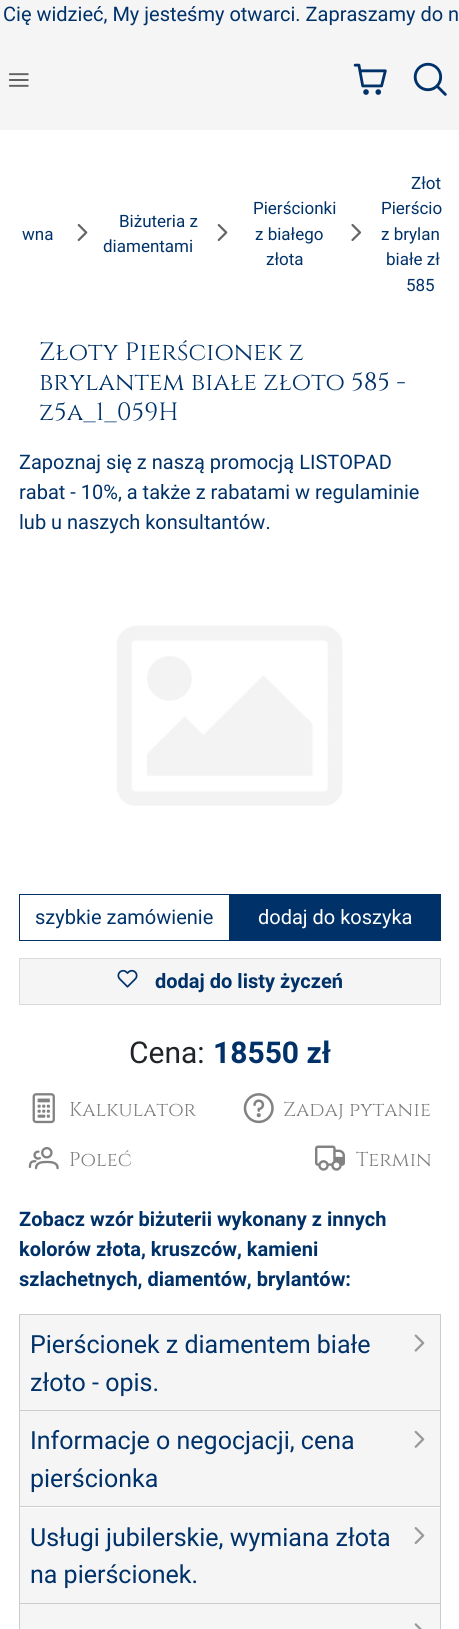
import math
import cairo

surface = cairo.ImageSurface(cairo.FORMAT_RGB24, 459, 1629)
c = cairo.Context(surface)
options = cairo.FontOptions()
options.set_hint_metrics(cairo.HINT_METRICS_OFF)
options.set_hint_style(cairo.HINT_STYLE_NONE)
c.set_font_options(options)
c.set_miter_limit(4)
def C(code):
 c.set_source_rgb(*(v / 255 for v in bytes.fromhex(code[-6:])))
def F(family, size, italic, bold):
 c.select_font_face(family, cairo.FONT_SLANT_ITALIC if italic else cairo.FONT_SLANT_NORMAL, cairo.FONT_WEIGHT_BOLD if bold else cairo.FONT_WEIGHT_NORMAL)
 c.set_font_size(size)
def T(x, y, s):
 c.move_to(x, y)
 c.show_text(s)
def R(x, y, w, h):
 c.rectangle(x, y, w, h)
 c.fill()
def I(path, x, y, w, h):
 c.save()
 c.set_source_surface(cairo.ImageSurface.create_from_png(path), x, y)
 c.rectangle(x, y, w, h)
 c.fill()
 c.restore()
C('ffffff')
c.paint()
C('f5f5f6')
R(0,0,459,130)
I('1.png',9,73,20,14)
I('2.png',353,63,34,32)
I('3.png',413,62,34,34)
F('Roboto',20,0,0)
C('003269')
T(3,21,'Cię widzieć, My jesteśmy otwarci. Zapraszamy do n')
F('Roboto',17,0,0)
T(22,240,'wna')
I('4.png',77,224,11,17)
T(119,227,'Biżuteria z')
T(103,252,'diamentami')
I('4.png',217,224,11,17)
T(253,214,'Pierścionki')
T(255,240,'z białego')
T(266,265,'złota')
I('5.png',351,224,11,17)
T(411,189,'Złot')
c.save()
c.rectangle(19,150,422,168)
c.clip()
T(381,214,'Pierścio')
c.restore()
T(381,240,'z brylan')
T(386,265,'białe zł')
T(406,291,'585')
F('Cinzel',25,0,0)
T(39,360,'Złoty Pierścionek z')
T(39,390,'brylantem białe złoto 585 -')
T(39,420,'z5a_1_059H')
F('Roboto',20,0,0)
T(19,469,'Zapoznaj się z naszą promocją LISTOPAD')
T(19,499,'rabat - 10%, a także z rabatami w regulaminie')
T(19,529,'lub u naszych konsultantów.')
I('6.png',116,625,227,181)
c.rectangle(19.5,894.5,210,46)
c.set_line_width(1)
c.stroke()
T(35,924,'szybkie zamówienie')
R(230,894,211,47)
C('ffffff')
T(258,924,'dodaj do koszyka')
C('f5f5f6')
c.rectangle(19.5,958.5,421,46)
c.fill_preserve()
C('dadade')
c.stroke()
I('7.png',117,969,21,19)
F('Roboto',20,0,1)
C('003269')
T(155,988,'dodaj do listy życzeń')
F('Roboto',30,0,0)
C('212529')
T(129,1063,'Cena:')
F('Roboto',30,0,1)
C('003269')
T(213,1063,'18550 zł')
I('8.png',32,1093,23,31)
F('Cinzel',20,0,0)
C('828282')
T(69,1116,'Kalkulator')
I('9.png',243,1093,31,31)
T(283,1116,'Zadaj pytanie')
I('10.png',28,1147,31,23)
T(69,1166,'Poleć')
I('11.png',315,1145,30,26)
T(356,1166,'Termin')
F('Roboto',20,0,1)
C('003269')
T(19,1226,'Zobacz wzór biżuterii wykonany z innych')
T(19,1256,'kolorów złota, kruszców, kamieni')
T(19,1286,'szlachetnych, diamentów, brylantów:')
c.rectangle(19.5,1314.5,421,96)
C('cccccc')
c.stroke()
C('f5f5f6')
R(20,1315,420,95)
F('Roboto',25,0,0)
C('003269')
T(30,1353,'Pierścionek z diamentem białe')
T(30,1391,'złoto - opis.')
I('12.png',414,1334,11,18)
C('cccccc')
R(440,1411,1,218)
R(19,1506,422,1)
R(19,1411,1,97)
C('f5f5f6')
R(20,1411,420,95)
C('003269')
T(30,1449,'Informacje o negocjacji, cena')
T(30,1487,'pierścionka')
I('13.png',414,1430,11,18)
C('cccccc')
R(19,1603,422,1)
R(19,1508,1,121)
C('f5f5f6')
R(20,1508,420,95)
C('003269')
T(30,1546,'Usługi jubilerskie, wymiana złota')
T(30,1583,'na pierścionek.')
I('14.png',414,1527,11,18)
C('f5f5f6')
R(20,1604,420,25)
I('15.png',414,1623,8,6)
surface.write_to_png('o.png')
